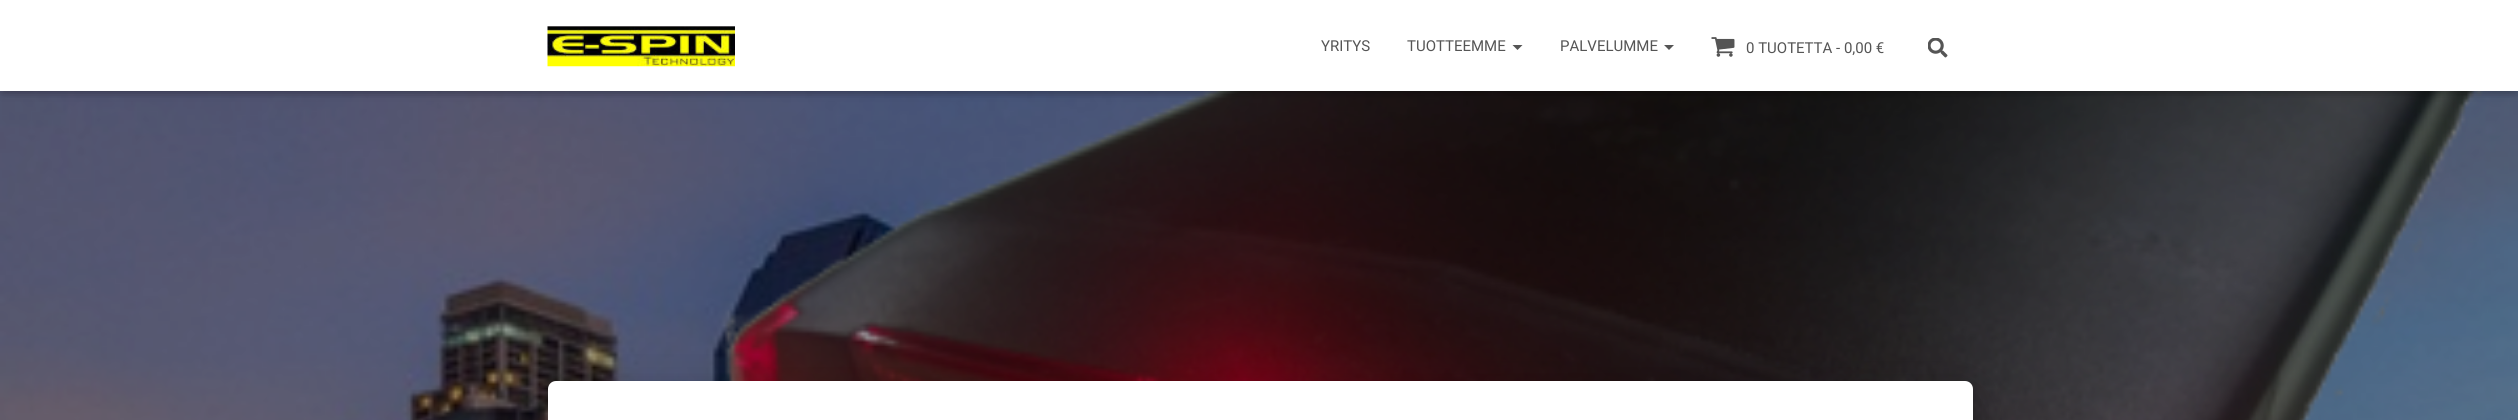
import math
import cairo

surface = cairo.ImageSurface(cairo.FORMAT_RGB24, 2518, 420)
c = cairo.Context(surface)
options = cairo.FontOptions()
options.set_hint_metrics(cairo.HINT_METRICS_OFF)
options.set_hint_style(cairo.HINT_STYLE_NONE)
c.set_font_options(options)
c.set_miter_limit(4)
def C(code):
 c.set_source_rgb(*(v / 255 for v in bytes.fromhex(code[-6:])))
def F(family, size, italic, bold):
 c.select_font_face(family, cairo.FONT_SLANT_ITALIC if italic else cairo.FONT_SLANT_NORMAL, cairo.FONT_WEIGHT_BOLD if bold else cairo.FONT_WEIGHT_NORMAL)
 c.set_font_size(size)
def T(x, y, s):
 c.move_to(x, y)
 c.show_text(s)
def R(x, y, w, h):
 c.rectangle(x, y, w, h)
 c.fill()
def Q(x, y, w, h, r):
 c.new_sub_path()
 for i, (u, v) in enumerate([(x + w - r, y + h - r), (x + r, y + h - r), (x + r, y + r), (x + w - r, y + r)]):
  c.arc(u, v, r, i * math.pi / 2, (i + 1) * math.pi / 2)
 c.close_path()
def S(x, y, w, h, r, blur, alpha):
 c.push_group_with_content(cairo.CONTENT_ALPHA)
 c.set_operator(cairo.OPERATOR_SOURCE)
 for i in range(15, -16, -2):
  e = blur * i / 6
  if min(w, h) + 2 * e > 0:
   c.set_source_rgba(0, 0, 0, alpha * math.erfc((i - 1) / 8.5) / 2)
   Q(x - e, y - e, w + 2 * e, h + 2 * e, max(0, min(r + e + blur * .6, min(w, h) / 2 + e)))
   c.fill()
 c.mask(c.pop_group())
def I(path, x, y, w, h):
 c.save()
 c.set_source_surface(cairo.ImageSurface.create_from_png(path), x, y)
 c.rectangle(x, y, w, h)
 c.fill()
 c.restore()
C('ffffff')
c.paint()
I('4.png',0,91,2518,329)
C('000000')
S(3,8,2513,86,0,3,.1)
S(0,1,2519,92,0,6,.12)
S(8,9,2503,76,0,6,.42)
C('ffffff')
R(0,0,2518,91)
I('1.png',547,26,188,41)
F('Roboto',15,0,0)
C('555555')
T(1321,51,'YRITYS')
T(1407,51,'TUOTTEEMME')
c.new_path()
c.move_to(1512.5,45)
c.line_to(1522.5,45)
c.line_to(1517.5,50)
c.close_path()
c.fill()
T(1560,51,'PALVELUMME')
c.new_path()
c.move_to(1664,45)
c.line_to(1674,45)
c.line_to(1669,50)
c.close_path()
c.fill()
I('2.png',1711,37,24,20)
T(1746,53,'0 TUOTETTA - 0,00 €')
I('3.png',1928,38,20,20)
C('000000')
S(554,398,1412,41,1,6,.2)
S(541,383,1438,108,14,19,.12)
S(545,399,1430,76,10,15,.14)
C('ffffff')
Q(548,381,1425,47,8)
c.fill()
surface.write_to_png('o.png')
